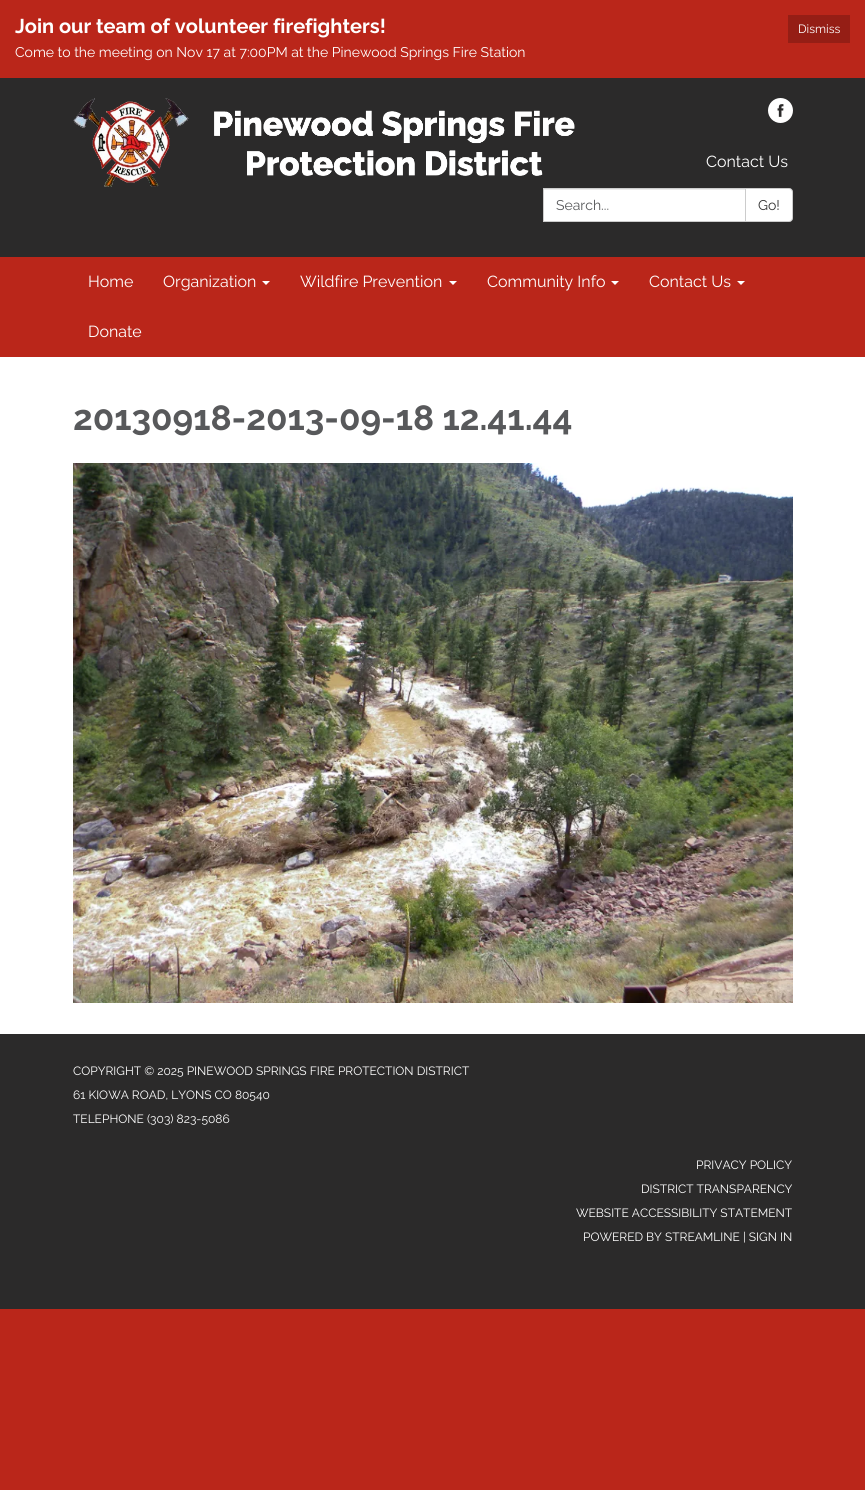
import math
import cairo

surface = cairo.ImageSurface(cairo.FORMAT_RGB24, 865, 1490)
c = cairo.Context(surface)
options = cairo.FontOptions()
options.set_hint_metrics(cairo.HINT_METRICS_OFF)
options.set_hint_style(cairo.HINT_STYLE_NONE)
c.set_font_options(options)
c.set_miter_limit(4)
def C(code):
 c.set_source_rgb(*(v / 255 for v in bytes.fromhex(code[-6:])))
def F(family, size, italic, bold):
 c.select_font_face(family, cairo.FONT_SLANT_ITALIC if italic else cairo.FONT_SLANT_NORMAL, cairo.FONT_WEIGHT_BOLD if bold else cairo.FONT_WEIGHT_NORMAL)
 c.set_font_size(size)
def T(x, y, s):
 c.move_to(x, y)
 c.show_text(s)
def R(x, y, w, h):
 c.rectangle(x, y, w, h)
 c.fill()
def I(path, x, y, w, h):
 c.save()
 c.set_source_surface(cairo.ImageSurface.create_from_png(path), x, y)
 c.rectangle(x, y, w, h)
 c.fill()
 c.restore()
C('ba261a')
c.paint()
F('Raleway',20,0,1)
C('ffffff')
T(15,33,'Join our team of volunteer firefighters!')
C('951e15')
R(788,15,62,28)
F('Raleway',12,0,0)
C('ffffff')
T(798,33,'Dismiss')
F('Raleway',14,0,0)
T(15,57,'Come to the meeting on Nov 17 at 7:00PM at the Pinewood Springs Fire Station')
C('2b2a2a')
R(0,78,865,179)
I('1.png',73,98,502,89)
I('2.png',768,98,25,25)
F('Raleway',16,0,0)
C('ffffff')
T(706,167,'Contact Us')
R(544,190,201,31)
C('ececec')
R(544,189,201,1)
c.rectangle(543.5,188.5,202,33)
C('cccccc')
c.set_line_width(1)
c.stroke()
F('Raleway',14,0,0)
C('58595b')
T(556,210,'Search...')
C('ffffff')
c.new_path()
c.move_to(745.5,188.5)
c.line_to(789,188.5)
c.curve_to(791,188.5,792.5,190,792.5,192)
c.line_to(792.5,218)
c.curve_to(792.5,220,791,221.5,789,221.5)
c.line_to(745.5,221.5)
c.close_path()
c.fill_preserve()
C('cccccc')
c.stroke()
C('333333')
T(758,210,'Go!')
F('Raleway',16,0,0)
C('ffffff')
T(88,287,'Home')
T(163,287,'Organization')
c.new_path()
c.move_to(262,281)
c.line_to(270,281)
c.line_to(266,285)
c.close_path()
c.fill()
T(300,287,'Wildfire Prevention')
c.new_path()
c.move_to(449,281)
c.line_to(457,281)
c.line_to(453,285)
c.close_path()
c.fill()
T(487,287,'Community Info')
c.new_path()
c.move_to(611,281)
c.line_to(619,281)
c.line_to(615,285)
c.close_path()
c.fill()
T(649,287,'Contact Us')
c.new_path()
c.move_to(737,281)
c.line_to(745,281)
c.line_to(741,285)
c.close_path()
c.fill()
T(88,337,'Donate')
R(0,357,865,677)
F('Raleway',35,0,1)
C('58595b')
T(73,430,'20130918-2013-09-18 12.41.44')
I('3.png',73,463,720,540)
C('2b2a2a')
R(0,1034,865,275)
F('Raleway',12,0,0)
C('ffffff')
T(73,1075,'COPYRIGHT © 2025 PINEWOOD SPRINGS FIRE PROTECTION DISTRICT')
T(73,1099,'61 KIOWA ROAD, LYONS CO 80540')
T(73,1123,'TELEPHONE (303) 823-5086')
T(696,1169,'PRIVACY POLICY')
T(641,1193,'DISTRICT TRANSPARENCY')
T(576,1217,'WEBSITE ACCESSIBILITY STATEMENT')
T(583,1241,'POWERED BY STREAMLINE | SIGN IN')
surface.write_to_png('o.png')
